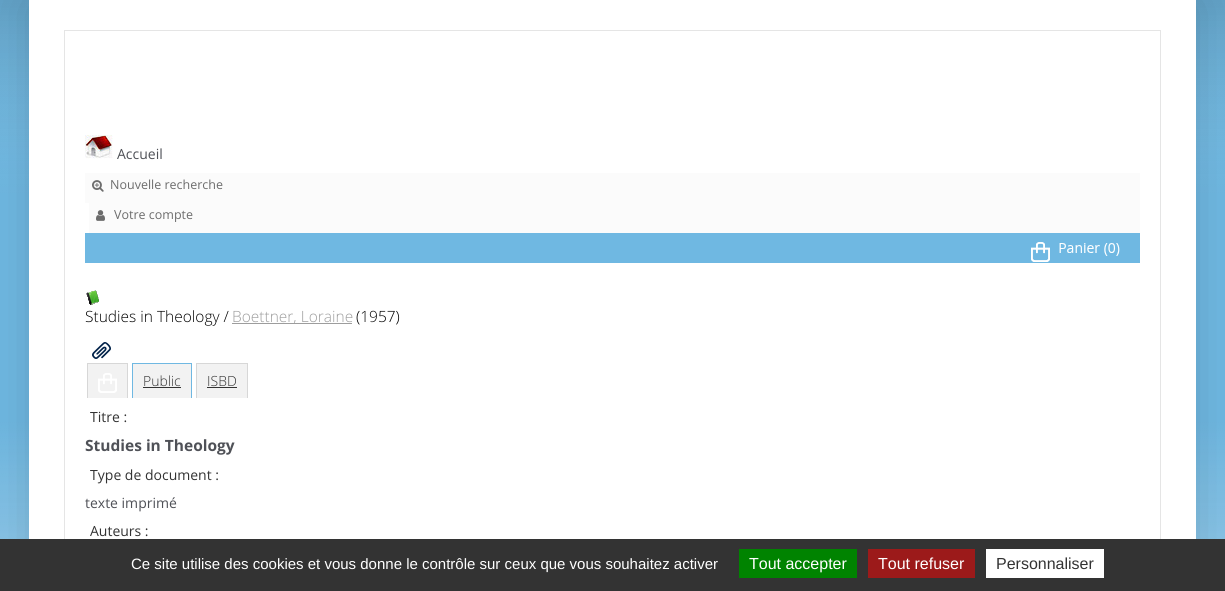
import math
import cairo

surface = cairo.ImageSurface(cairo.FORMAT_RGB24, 1225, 591)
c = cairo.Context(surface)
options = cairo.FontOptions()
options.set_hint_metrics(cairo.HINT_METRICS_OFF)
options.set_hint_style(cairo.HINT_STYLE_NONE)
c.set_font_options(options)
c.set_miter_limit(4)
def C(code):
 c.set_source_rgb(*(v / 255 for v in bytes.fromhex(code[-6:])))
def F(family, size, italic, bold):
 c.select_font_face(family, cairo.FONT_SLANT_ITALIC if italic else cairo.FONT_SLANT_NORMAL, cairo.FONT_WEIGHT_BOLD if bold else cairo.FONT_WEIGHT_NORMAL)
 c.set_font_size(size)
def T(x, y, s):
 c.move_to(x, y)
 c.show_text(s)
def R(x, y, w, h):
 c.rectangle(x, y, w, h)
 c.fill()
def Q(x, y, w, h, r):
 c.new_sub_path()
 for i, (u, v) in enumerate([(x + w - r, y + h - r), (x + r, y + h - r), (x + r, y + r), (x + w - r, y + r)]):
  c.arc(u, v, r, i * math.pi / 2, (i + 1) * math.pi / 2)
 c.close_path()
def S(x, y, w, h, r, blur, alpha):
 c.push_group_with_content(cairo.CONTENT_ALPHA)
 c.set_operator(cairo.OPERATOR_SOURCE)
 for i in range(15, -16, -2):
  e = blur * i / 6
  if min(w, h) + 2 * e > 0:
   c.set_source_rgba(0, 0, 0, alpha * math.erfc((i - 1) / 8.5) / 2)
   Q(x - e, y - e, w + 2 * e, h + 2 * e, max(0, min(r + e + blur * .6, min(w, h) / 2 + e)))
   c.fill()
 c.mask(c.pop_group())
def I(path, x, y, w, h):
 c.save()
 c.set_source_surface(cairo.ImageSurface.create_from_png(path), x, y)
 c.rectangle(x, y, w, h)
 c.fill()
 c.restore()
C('6fb8e2')
c.paint()
I('1.png',0,0,1225,539)
C('000000')
S(29,0,1167,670,4,25,.15)
C('ffffff')
R(29,0,1167,539)
c.rectangle(64.5,30.5,1096,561)
C('e5e5e5')
c.set_line_width(1)
c.stroke()
I('2.png',85,135,28,24)
F('Open Sans',14,0,0)
C('4f5157')
T(117,159,'Accueil')
C('fbfbfb')
R(85,173,1055,30)
I('3.png',92,180,12,12)
F('Open Sans',12.5,0,0)
C('6c6c6c')
T(110,189,'Nouvelle recherche')
C('fbfbfb')
R(89,203,1051,30)
I('4.png',96,210,9,11)
C('6c6c6c')
T(114,219,'Votre compte')
C('6fb8e2')
R(85,233,1055,30)
I('5.png',1031,242,89,20)
I('6.png',86,290,13,15)
F('Open Sans Light',15.5,0,0)
C('000000')
T(85,322,'Studies in Theology /')
C('9d9d9d')
R(232,323,120,1)
T(232,322,'Boettner, Loraine')
C('000000')
T(356,322,'(1957)')
I('7.png',92,342,19,17)
C('f2f2f2')
R(88,364,39,34)
C('d7d7d7')
R(87,363,41,1)
R(127,363,1,35)
R(87,363,1,35)
I('8.png',98,373,19,20)
C('f2f2f2')
R(133,364,58,34)
C('6fb8e2')
R(132,363,60,1)
R(191,363,1,35)
R(132,363,1,35)
F('Open Sans Light',14,0,0)
C('333333')
T(143,386,'Public')
R(143,387,38,1)
C('f2f2f2')
R(197,364,50,34)
C('d7d7d7')
R(196,363,52,1)
R(247,363,1,35)
R(196,363,1,35)
C('333333')
T(207,386,'ISBD')
R(207,387,30,1)
F('Open Sans',14,0,0)
T(90,422,'Titre :')
F('Open Sans',15.5,0,1)
C('4f5157')
T(85,451,'Studies in Theology')
F('Open Sans',14,0,0)
C('333333')
T(90,480,'Type de document :')
C('4f5157')
T(85,508,'texte imprimé')
C('333333')
T(90,536,'Auteurs :')
R(0,539,1225,52)
F('Liberation Sans',15,0,0)
C('ffffff')
T(131,569,'Ce site utilise des cookies et vous donne le contrôle sur ceux que vous souhaitez activer')
C('008300')
R(739,549,118,29)
F('Liberation Sans',16,0,0)
C('ffffff')
T(749,569,'Tout accepter')
C('9c1a1a')
R(868,549,107,29)
C('ffffff')
T(878,569,'Tout refuser')
R(986,549,118,29)
C('333333')
T(996,569,'Personnaliser')
surface.write_to_png('o.png')
